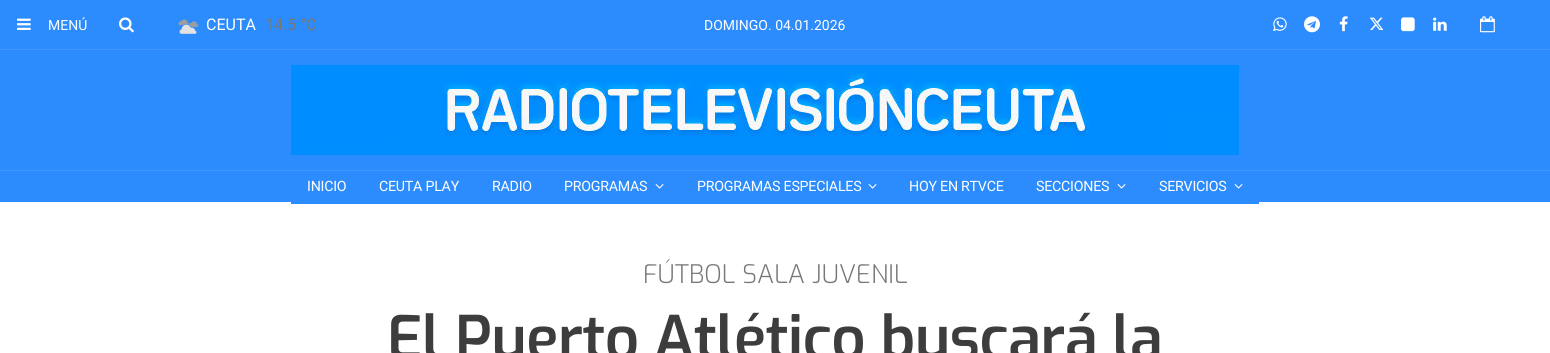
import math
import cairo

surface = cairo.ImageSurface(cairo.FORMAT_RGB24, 1550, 353)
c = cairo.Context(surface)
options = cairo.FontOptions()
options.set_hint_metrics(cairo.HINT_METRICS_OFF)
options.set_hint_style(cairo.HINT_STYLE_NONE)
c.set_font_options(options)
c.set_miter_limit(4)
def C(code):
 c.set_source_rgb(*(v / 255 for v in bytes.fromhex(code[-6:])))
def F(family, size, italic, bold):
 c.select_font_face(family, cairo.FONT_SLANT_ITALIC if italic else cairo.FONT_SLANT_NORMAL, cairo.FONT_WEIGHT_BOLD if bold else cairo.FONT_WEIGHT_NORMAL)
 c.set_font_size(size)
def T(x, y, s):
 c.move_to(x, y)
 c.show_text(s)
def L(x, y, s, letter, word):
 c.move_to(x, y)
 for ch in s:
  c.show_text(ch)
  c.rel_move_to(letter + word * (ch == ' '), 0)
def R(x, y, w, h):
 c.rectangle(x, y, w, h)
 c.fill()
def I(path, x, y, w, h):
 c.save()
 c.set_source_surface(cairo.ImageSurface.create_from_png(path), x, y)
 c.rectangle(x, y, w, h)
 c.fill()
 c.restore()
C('ffffff')
c.paint()
C('2c8cfd')
R(0,0,1550,202)
C('3f96fd')
R(0,49,1550,1)
I('1.png',17,18,14,12)
F('Roboto',14,0,0)
C('ffffff')
T(48,30,'MENÚ')
I('2.png',119,17,15,16)
I('3.png',178,19,21,15)
F('Roboto',16,0,0)
T(206,30,'CEUTA')
C('777777')
T(265,30,'14.5 °C')
F('Roboto',14,0,0)
C('ffffff')
T(704,30,'DOMINGO. 04.01.2026')
I('4.png',1273,17,14,15)
I('5.png',1304,16,16,17)
I('6.png',1339,16,9,16)
I('7.png',1369,17,15,13)
I('9.png',1401,18,14,7)
I('8.png',1401,17,14,15)
I('10.png',1433,17,14,14)
I('11.png',1480,16,15,17)
I('12.png',291,65,948,90)
C('4198fd')
R(0,170,1550,1)
C('2c8cfd')
R(291,202,968,2)
F('Roboto',14.25,0,0)
C('ffffff')
L(307,191,'INICIO',-.25,0)
L(379,191,'CEUTA PLAY',-.25,0)
L(492,191,'RADIO',-.25,0)
L(564,191,'PROGRAMAS',-.25,0)
I('13.png',655,184,9,5)
L(697,191,'PROGRAMAS ESPECIALES',-.25,0)
I('13.png',868,184,9,5)
L(909,191,'HOY EN RTVCE',-.25,0)
L(1036,191,'SECCIONES',-.25,0)
I('13.png',1117,184,9,5)
L(1159,191,'SERVICIOS',-.25,0)
I('13.png',1234,184,9,5)
F('Exo Light',25.6,0,0)
C('777777')
T(643,283,'FÚTBOL SALA JUVENIL')
F('Exo SemiBold',60,0,0)
C('3d3d3d')
L(387,359,'El Puerto Atlético buscará la',-.6,0)
surface.write_to_png('o.png')
